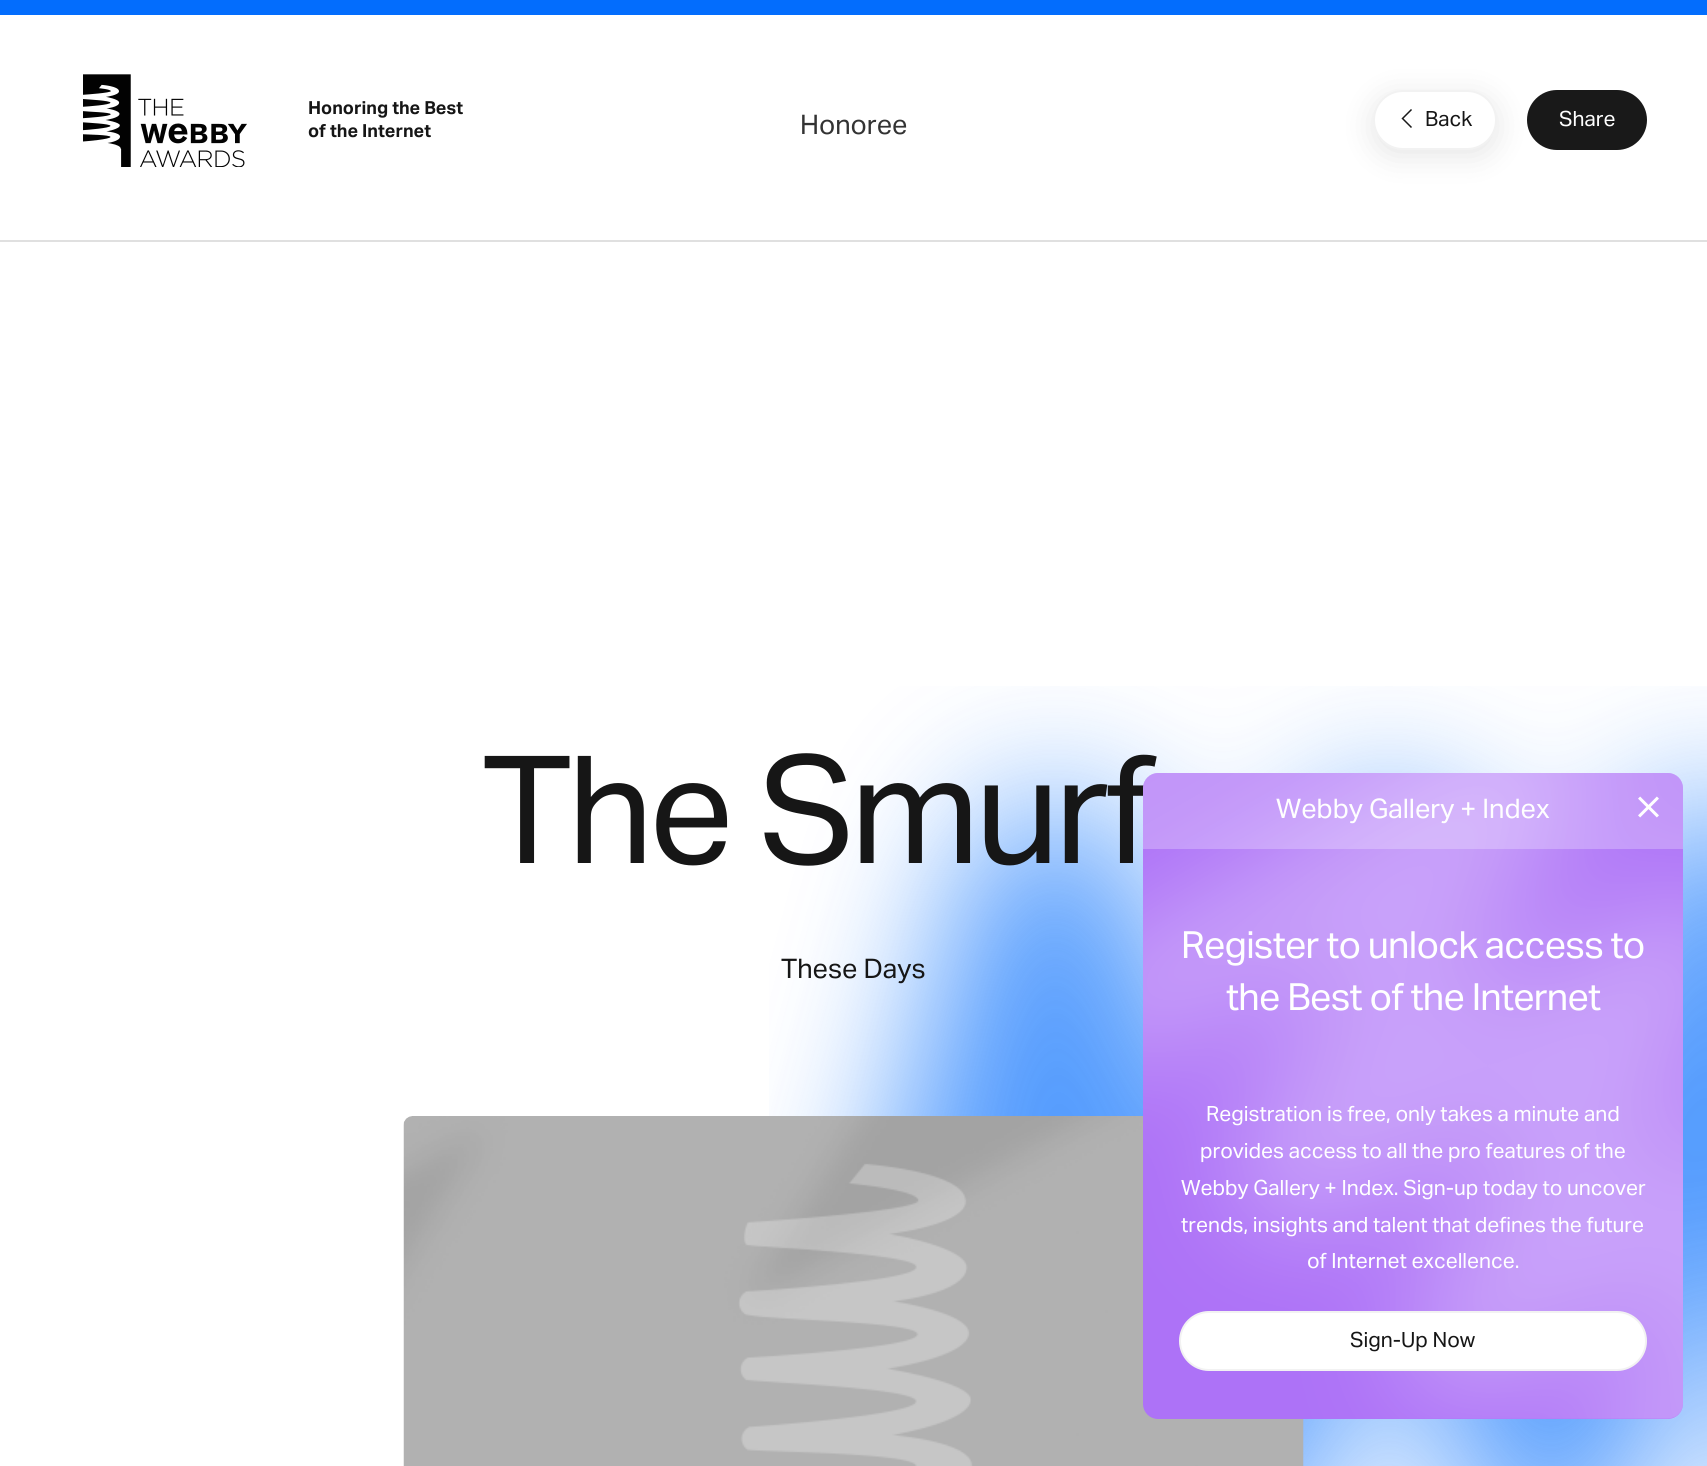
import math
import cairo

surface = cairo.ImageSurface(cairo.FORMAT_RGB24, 1707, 1466)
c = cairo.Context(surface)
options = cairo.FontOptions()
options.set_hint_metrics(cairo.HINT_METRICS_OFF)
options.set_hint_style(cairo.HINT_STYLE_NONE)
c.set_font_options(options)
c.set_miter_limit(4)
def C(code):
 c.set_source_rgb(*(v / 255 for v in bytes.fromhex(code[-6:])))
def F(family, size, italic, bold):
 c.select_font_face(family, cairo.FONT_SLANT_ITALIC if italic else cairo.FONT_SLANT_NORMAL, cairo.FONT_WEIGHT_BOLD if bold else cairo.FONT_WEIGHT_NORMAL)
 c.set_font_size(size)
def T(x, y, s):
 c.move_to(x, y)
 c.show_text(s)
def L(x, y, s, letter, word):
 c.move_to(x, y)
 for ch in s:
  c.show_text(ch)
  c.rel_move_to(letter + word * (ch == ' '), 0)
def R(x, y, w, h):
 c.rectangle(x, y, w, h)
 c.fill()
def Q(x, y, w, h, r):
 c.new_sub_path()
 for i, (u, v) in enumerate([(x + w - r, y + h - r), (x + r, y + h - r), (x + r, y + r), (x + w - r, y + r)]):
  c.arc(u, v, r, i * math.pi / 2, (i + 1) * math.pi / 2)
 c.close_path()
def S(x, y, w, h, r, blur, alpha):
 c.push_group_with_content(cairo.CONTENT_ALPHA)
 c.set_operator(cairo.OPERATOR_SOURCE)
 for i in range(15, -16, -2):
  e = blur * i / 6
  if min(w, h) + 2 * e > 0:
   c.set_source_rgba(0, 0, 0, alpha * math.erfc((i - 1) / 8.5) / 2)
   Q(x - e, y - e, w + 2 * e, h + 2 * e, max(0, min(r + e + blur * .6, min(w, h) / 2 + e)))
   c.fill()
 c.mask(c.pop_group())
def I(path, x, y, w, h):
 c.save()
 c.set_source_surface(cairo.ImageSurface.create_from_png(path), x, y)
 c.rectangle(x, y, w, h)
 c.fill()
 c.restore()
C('ffffff')
c.paint()
C('036dfd')
R(0,0,1707,15)
C('e0e0e0')
R(0,240,1707,2)
I('1.png',83,74,164,93)
F('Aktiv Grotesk',18,0,1)
C('161616')
T(308,114,'Honoring the Best')
T(308,137,'of the Internet')
F('Aktiv Grotesk',27,0,0)
C('333333')
T(800,134,'Honoree')
C('000000')
S(1373,96,124,60,30,15,.1)
C('ffffff')
Q(1374,91,122,58,29)
c.fill_preserve()
C('f2f2f2')
c.stroke()
c.new_path()
c.move_to(1411.5,127.5)
c.line_to(1402.5,118.5)
c.line_to(1411.5,109.5)
C('191919')
c.set_line_width(1.5)
c.stroke()
F('Aktiv Grotesk',21,0,0)
C('161616')
T(1425,126,'Back')
C('191919')
Q(1527,90,120,60,30)
c.fill()
C('ffffff')
T(1559,126,'Share')
I('3.png',769,686,938,780)
F('Aktiv Grotesk',150,0,0)
C('161616')
L(482,863,'The Smurf',-4.5,0)
F('Aktiv Grotesk',27,0,0)
T(781,978,'These Days')
I('2.png',403,1116,901,350)
C('ad72f7')
Q(1143,773,540,646,15)
c.fill()
I('4.png',1143,773,540,646)
c.set_source_rgba(1,1,1,0.25)
c.new_path()
c.move_to(1158,773)
c.line_to(1668,773)
c.curve_to(1676.5,773,1683,779.5,1683,788)
c.line_to(1683,849)
c.line_to(1143,849)
c.line_to(1143,788)
c.curve_to(1143,779.5,1149.5,773,1158,773)
c.close_path()
c.fill()
C('ffffff')
T(1276,818,'Webby Gallery + Index')
I('5.png',1638,796,21,22)
F('Aktiv Grotesk',37.5,0,0)
L(1181,958,'Register to unlock access to',-.75,0)
L(1226,1010,'the Best of the Internet',-.75,0)
F('Aktiv Grotesk',21,0,0)
T(1206,1121,'Registration is free, only takes a minute and')
T(1200,1158,'provides access to all the pro features of the')
T(1181,1195,'Webby Gallery + Index. Sign-up today to uncover')
T(1181,1232,'trends, insights and talent that defines the future')
T(1307,1268,'of Internet excellence.')
Q(1180,1312,466,58,29)
c.fill_preserve()
C('f2f2f2')
c.set_line_width(2)
c.stroke()
C('161616')
T(1350,1347,'Sign-Up Now')
surface.write_to_png('o.png')
